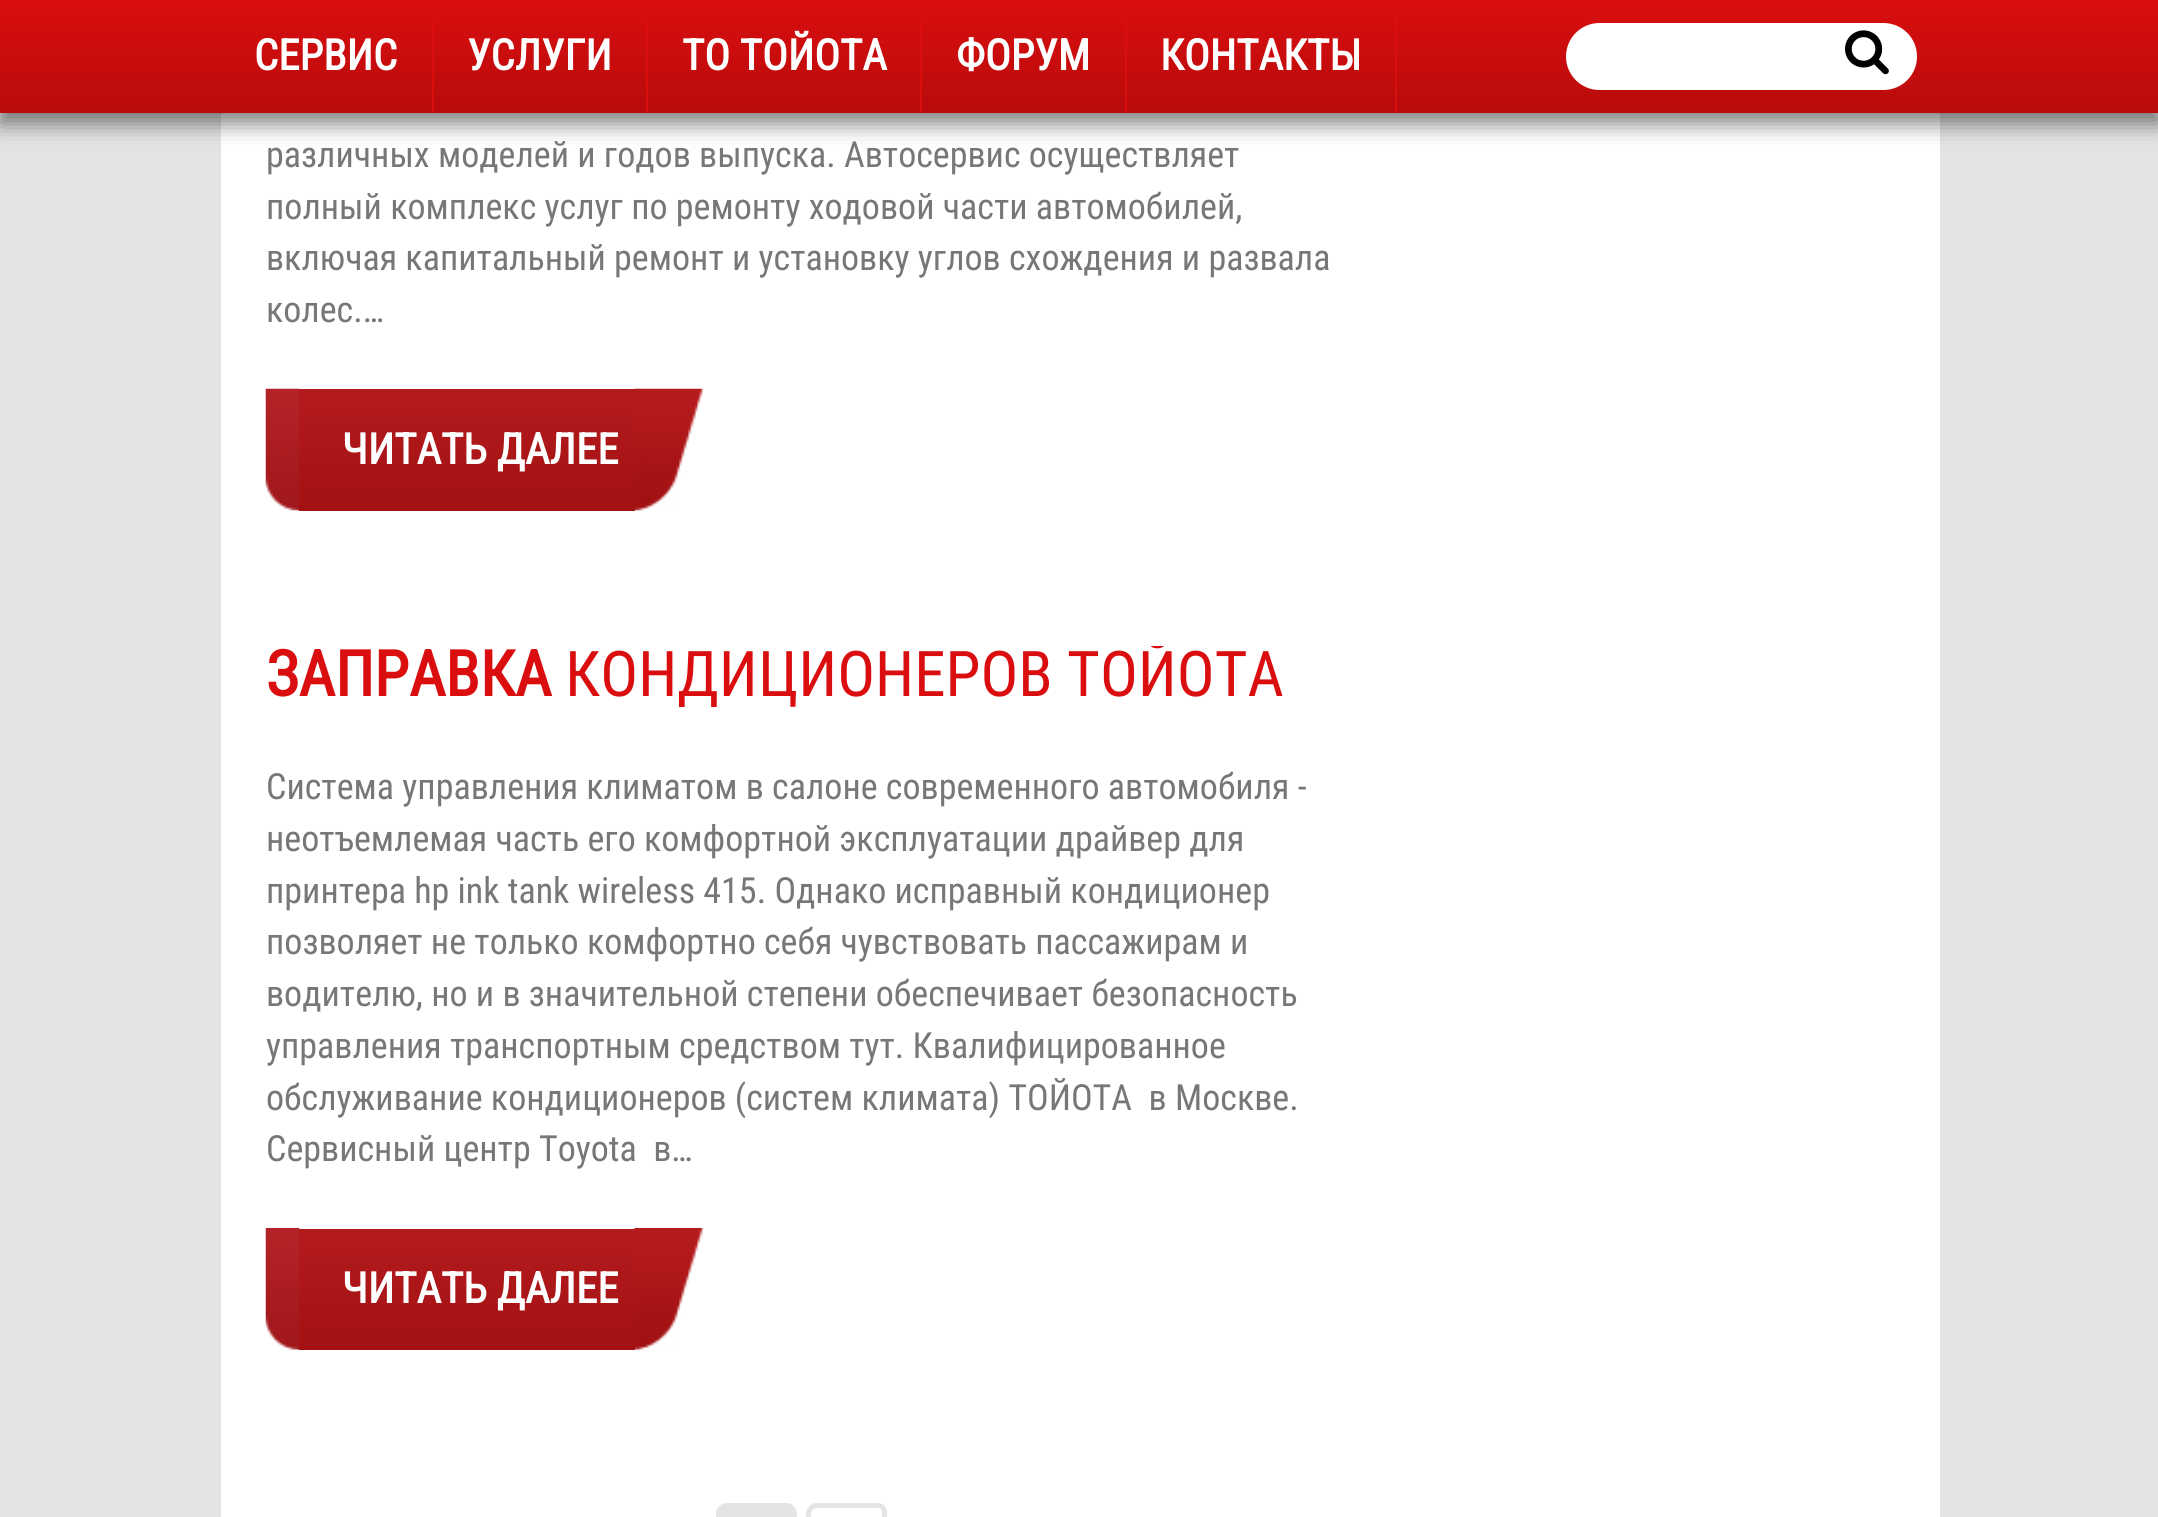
import math
import cairo

surface = cairo.ImageSurface(cairo.FORMAT_RGB24, 2158, 1517)
c = cairo.Context(surface)
options = cairo.FontOptions()
options.set_hint_metrics(cairo.HINT_METRICS_OFF)
options.set_hint_style(cairo.HINT_STYLE_NONE)
c.set_font_options(options)
c.set_miter_limit(4)
def C(code):
 c.set_source_rgb(*(v / 255 for v in bytes.fromhex(code[-6:])))
def F(family, size, italic, bold):
 c.select_font_face(family, cairo.FONT_SLANT_ITALIC if italic else cairo.FONT_SLANT_NORMAL, cairo.FONT_WEIGHT_BOLD if bold else cairo.FONT_WEIGHT_NORMAL)
 c.set_font_size(size)
def T(x, y, s):
 c.move_to(x, y)
 c.show_text(s)
def R(x, y, w, h):
 c.rectangle(x, y, w, h)
 c.fill()
def Q(x, y, w, h, r):
 c.new_sub_path()
 for i, (u, v) in enumerate([(x + w - r, y + h - r), (x + r, y + h - r), (x + r, y + r), (x + w - r, y + r)]):
  c.arc(u, v, r, i * math.pi / 2, (i + 1) * math.pi / 2)
 c.close_path()
def S(x, y, w, h, r, blur, alpha):
 c.push_group_with_content(cairo.CONTENT_ALPHA)
 c.set_operator(cairo.OPERATOR_SOURCE)
 for i in range(15, -16, -2):
  e = blur * i / 6
  if min(w, h) + 2 * e > 0:
   c.set_source_rgba(0, 0, 0, alpha * math.erfc((i - 1) / 8.5) / 2)
   Q(x - e, y - e, w + 2 * e, h + 2 * e, max(0, min(r + e + blur * .6, min(w, h) / 2 + e)))
   c.fill()
 c.mask(c.pop_group())
def I(path, x, y, w, h):
 c.save()
 c.set_source_surface(cairo.ImageSurface.create_from_png(path), x, y)
 c.rectangle(x, y, w, h)
 c.fill()
 c.restore()
C('e3e5e4')
c.paint()
C('ffffff')
R(221,113,1719,1404)
C('000000')
S(0,11,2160,113,0,11,.5)
gradient = cairo.LinearGradient(1080,0,1080,113)
gradient.add_color_stop_rgba(0,0.855,0.055,0.059,1)
gradient.add_color_stop_rgba(1,0.722,0.043,0.047,1)
c.set_source(gradient)
R(221,0,1719,113)
gradient = cairo.LinearGradient(-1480,0,-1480,113)
gradient.add_color_stop_rgba(0,0.855,0.055,0.059,1)
gradient.add_color_stop_rgba(1,0.722,0.043,0.047,1)
c.set_source(gradient)
R(0,0,221,113)
C('da0e0f')
R(432,0,2,113)
F('Roboto Condensed',42.75,0,1)
C('ffffff')
T(254,70,'СЕРВИС')
C('da0e0f')
R(646,0,2,113)
C('ffffff')
T(467,70,'УСЛУГИ')
C('da0e0f')
R(920,0,2,113)
C('ffffff')
T(682,70,'ТО ТОЙОТА')
C('da0e0f')
R(1125,0,2,113)
C('ffffff')
T(956,70,'ФОРУМ')
C('da0e0f')
R(1395,0,2,113)
C('ffffff')
T(1160,70,'КОНТАКТЫ')
Q(1566,23,351,67,33.5)
c.fill()
I('1.png',1845,30,44,45)
gradient = cairo.LinearGradient(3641,0,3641,113)
gradient.add_color_stop_rgba(0,0.855,0.055,0.059,1)
gradient.add_color_stop_rgba(1,0.722,0.043,0.047,1)
c.set_source(gradient)
R(1940,0,218,113)
F('Roboto Condensed',36,0,0)
C('777777')
T(266,167,'различных моделей и годов выпуска. Автосервис осуществляет')
T(266,219,'полный комплекс услуг по ремонту ходовой части автомобилей,')
T(266,270,'включая капитальный ремонт и установку углов схождения и развала')
T(266,322,'колес.…')
gradient = cairo.LinearGradient(467,389,467,511)
gradient.add_color_stop_rgba(0,0.706,0.106,0.114,1)
gradient.add_color_stop_rgba(1,0.639,0.067,0.075,1)
c.set_source(gradient)
R(299,389,336,122)
I('2.png',265,388,35,123)
F('Roboto Condensed',42.75,0,1)
C('ffffff')
T(342,464,'ЧИТАТЬ ДАЛЕЕ')
I('3.png',634,388,70,123)
F('Roboto Condensed',63,0,1)
C('da0e0f')
T(266,696,'ЗАПРАВКА')
c.save()
c.rectangle(266,646,1071,749)
c.clip()
F('Roboto Condensed',63,0,0)
T(565,696,'КОНДИЦИОНЕРОВ ТОЙОТА')
c.restore()
F('Roboto Condensed',36,0,0)
C('777777')
T(266,799,'Система управления климатом в салоне современного автомобиля -')
T(266,851,'неотъемлемая часть его комфортной эксплуатации драйвер для')
T(266,903,'принтера hp ink tank wireless 415. Однако исправный кондиционер')
T(266,954,'позволяет не только комфортно себя чувствовать пассажирам и')
T(266,1006,'водителю, но и в значительной степени обеспечивает безопасность')
T(266,1058,'управления транспортным средством тут. Квалифицированное')
T(266,1110,'обслуживание кондиционеров (систем климата) ТОЙОТА  в Москве.')
T(266,1161,'Сервисный центр Toyota  в…')
gradient = cairo.LinearGradient(467,1229,467,1350)
gradient.add_color_stop_rgba(0,0.706,0.106,0.114,1)
gradient.add_color_stop_rgba(1,0.639,0.067,0.075,1)
c.set_source(gradient)
R(299,1229,336,121)
I('4.png',265,1228,35,122)
F('Roboto Condensed',42.75,0,1)
C('ffffff')
T(342,1303,'ЧИТАТЬ ДАЛЕЕ')
I('5.png',634,1228,70,122)
C('e3e5e4')
Q(718.5,1505.5,76,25,8.5)
c.fill_preserve()
c.set_line_width(5)
c.stroke()
c.new_path()
c.move_to(817,1505.5)
c.line_to(878,1505.5)
c.curve_to(881.5,1505.5,884.5,1508.5,884.5,1512)
c.line_to(884.5,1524)
c.curve_to(884.5,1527.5,881.5,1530.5,878,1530.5)
c.line_to(817,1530.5)
c.curve_to(812.5,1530.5,808.5,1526.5,808.5,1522)
c.line_to(808.5,1514)
c.curve_to(808.5,1509.5,812.5,1505.5,817,1505.5)
c.close_path()
C('e5e5e5')
c.stroke()
surface.write_to_png('o.png')
